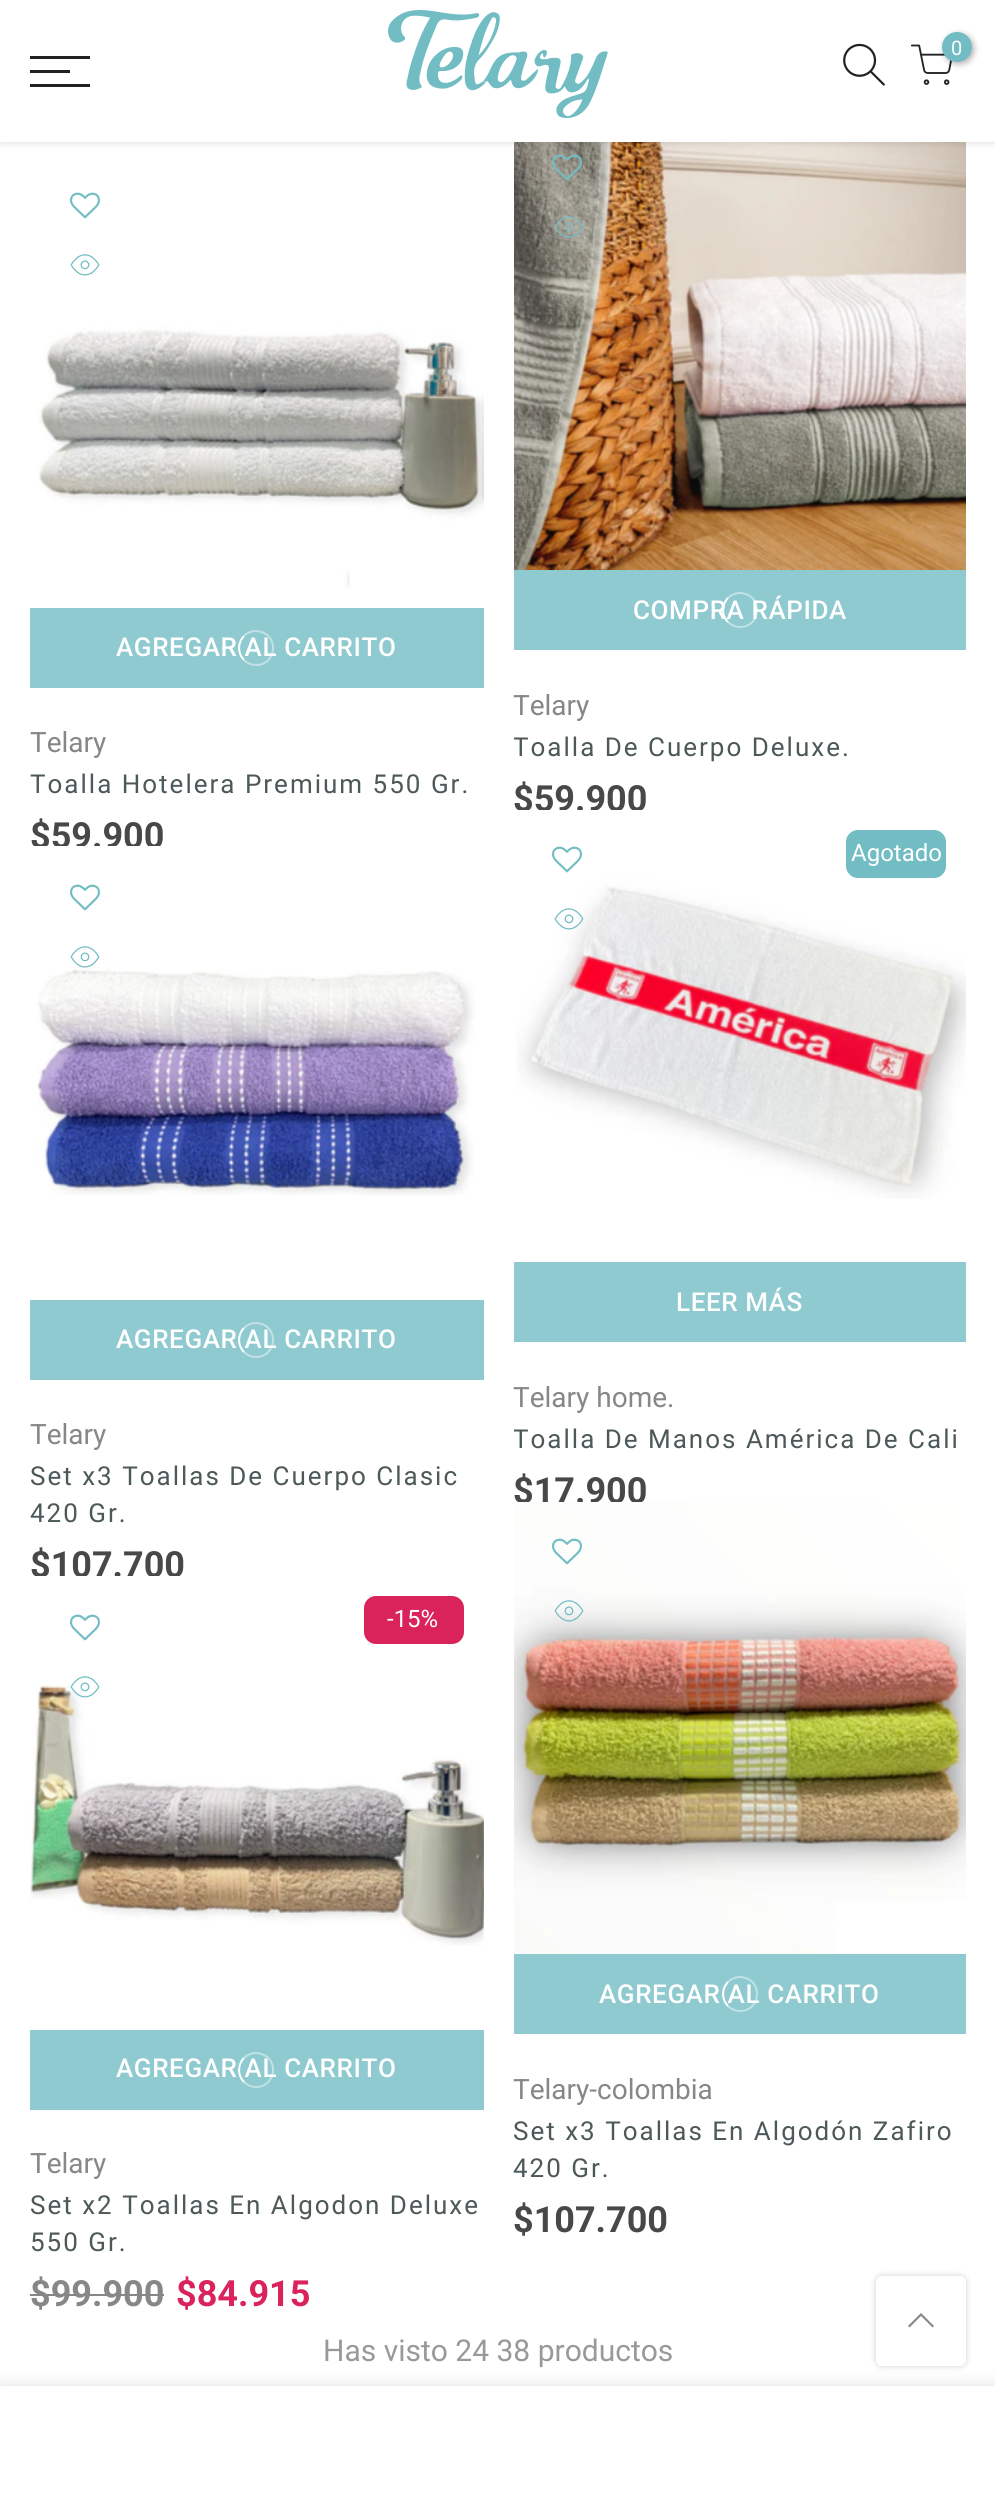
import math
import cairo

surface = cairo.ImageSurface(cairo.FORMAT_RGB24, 995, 2495)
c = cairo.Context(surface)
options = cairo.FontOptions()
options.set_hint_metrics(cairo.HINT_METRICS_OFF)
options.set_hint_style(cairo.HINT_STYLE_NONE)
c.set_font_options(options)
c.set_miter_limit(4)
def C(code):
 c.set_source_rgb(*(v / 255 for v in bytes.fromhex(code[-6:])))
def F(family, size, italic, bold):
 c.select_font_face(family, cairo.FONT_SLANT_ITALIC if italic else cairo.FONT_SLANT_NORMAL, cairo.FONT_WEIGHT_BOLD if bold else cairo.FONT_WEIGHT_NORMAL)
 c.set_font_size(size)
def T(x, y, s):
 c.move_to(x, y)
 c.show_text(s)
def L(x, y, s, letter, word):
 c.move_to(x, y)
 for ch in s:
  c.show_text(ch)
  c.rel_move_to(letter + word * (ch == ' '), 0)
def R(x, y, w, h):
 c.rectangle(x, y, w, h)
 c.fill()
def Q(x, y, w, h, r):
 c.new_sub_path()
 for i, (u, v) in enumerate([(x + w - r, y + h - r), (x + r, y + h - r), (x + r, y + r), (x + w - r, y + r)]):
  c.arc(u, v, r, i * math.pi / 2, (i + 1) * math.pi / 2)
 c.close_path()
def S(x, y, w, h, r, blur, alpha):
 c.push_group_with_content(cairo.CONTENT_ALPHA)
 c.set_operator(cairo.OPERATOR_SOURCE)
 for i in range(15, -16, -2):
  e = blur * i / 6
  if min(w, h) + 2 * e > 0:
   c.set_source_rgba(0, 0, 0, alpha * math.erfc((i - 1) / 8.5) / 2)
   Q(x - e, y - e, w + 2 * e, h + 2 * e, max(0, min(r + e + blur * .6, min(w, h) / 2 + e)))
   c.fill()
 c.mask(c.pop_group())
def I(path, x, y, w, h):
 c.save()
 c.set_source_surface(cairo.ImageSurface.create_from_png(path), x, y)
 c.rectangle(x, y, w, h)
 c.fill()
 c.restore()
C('ffffff')
c.paint()
I('7.png',514,142,452,428)
C('000000')
S(0,2,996,142,0,3,.1)
C('ffffff')
R(0,0,995,142)
I('1.png',388,10,220,108)
I('2.png',843,43,42,43)
I('3.png',910,44,42,41)
C('000000')
S(944,34,30,30,15,3,.3)
C('72bdc3')
c.arc(957,47,15,0,2 * math.pi)
c.fill()
F('Roboto',20,0,0)
C('ffffff')
T(951,55,'0')
C('222222')
R(30,56,60,3)
R(30,70,40,3)
R(30,84,60,3)
I('4.png',34,154,450,434)
I('5.png',70,192,30,27)
I('6.png',70,254,30,22)
c.new_path()
c.move_to(74,276)
c.curve_to(67.5,269.5,67.5,258.5,74,252)
C('ffffff')
c.stroke()
C('8ecacf')
R(30,608,454,80)
F('Roboto Medium',26,0,0)
C('ffffff')
L(116,656,'AGREGAR AL CARRITO',.6,0)
c.new_path()
c.move_to(244,636)
c.curve_to(248,632,254,630,259.5,631.5)
c.curve_to(279.5,635.5,276.5,665,256,665)
c.curve_to(251.5,665,247,663,244,660)
c.set_source_rgba(1,1,1,0.45)
c.stroke()
c.new_path()
c.move_to(244,660)
c.curve_to(237.5,653.5,237.5,642.5,244,636)
C('ffffff')
c.stroke()
F('Roboto',28,0,0)
C('878787')
T(30,752,'Telary')
F('Roboto',26,0,0)
C('4d5959')
L(30,793,'Toalla Hotelera Premium 550 Gr.',2,0)
F('Roboto',36,0,1)
C('484848')
T(30,848,'$59.900')
I('8.png',552,154,30,27)
I('9.png',554,216,30,22)
C('8ecacf')
R(514,570,452,80)
F('Roboto Medium',26,0,0)
C('ffffff')
L(633,619,'COMPRA RÁPIDA',.6,0)
c.new_path()
c.move_to(728,598)
c.curve_to(732,594,738,592,743.5,593.5)
c.curve_to(763.5,597.5,760.5,627,740,627)
c.curve_to(735.5,627,731,625,728,622)
c.set_source_rgba(1,1,1,0.45)
c.stroke()
c.new_path()
c.move_to(728,622)
c.curve_to(721.5,615.5,721.5,604.5,728,598)
C('ffffff')
c.stroke()
F('Roboto',28,0,0)
C('878787')
T(513,715,'Telary')
c.save()
c.rectangle(514,730,452,36)
c.clip()
F('Roboto',26,0,0)
C('4d5959')
L(513,756,'Toalla De Cuerpo Deluxe.',2,0)
c.restore()
F('Roboto',36,0,1)
C('484848')
T(513,811,'$59.900')
I('10.png',34,846,441,350)
I('5.png',70,884,30,27)
I('11.png',70,946,30,22)
C('8ecacf')
R(30,1300,454,80)
F('Roboto Medium',26,0,0)
C('ffffff')
L(116,1348,'AGREGAR AL CARRITO',.6,0)
c.new_path()
c.move_to(244,1328)
c.curve_to(248,1324,254,1322,259.5,1323.5)
c.curve_to(279.5,1327.5,276.5,1357,256,1357)
c.curve_to(251.5,1357,247,1355,244,1352)
c.set_source_rgba(1,1,1,0.45)
c.stroke()
c.new_path()
c.move_to(244,1352)
c.curve_to(237.5,1345.5,237.5,1334.5,244,1328)
C('ffffff')
c.stroke()
F('Roboto',28,0,0)
C('878787')
T(30,1444,'Telary')
F('Roboto',26,0,0)
C('4d5959')
L(30,1485,'Set x3 Toallas De Cuerpo Clasic',2,0)
L(30,1522,'420 Gr.',2,0)
F('Roboto',36,0,1)
C('484848')
T(30,1577,'$107.700')
I('13.png',516,810,450,389)
I('5.png',552,846,30,27)
I('12.png',554,908,30,22)
C('72bdc3')
Q(846,830,100,48,12)
c.fill()
F('Roboto',24,0,0)
C('ffffff')
T(851,861,'Agotado')
C('8ecacf')
R(514,1262,452,80)
F('Roboto Medium',26,0,0)
C('ffffff')
L(676,1311,'LEER MÁS',.6,0)
F('Roboto',28,0,0)
C('878787')
T(513,1407,'Telary home.')
c.save()
c.rectangle(514,1422,452,36)
c.clip()
F('Roboto',26,0,0)
C('4d5959')
L(513,1448,'Toalla De Manos América De Cali',2,0)
c.restore()
F('Roboto',36,0,1)
C('484848')
T(513,1503,'$17.900')
I('15.png',30,1576,454,370)
I('5.png',70,1614,30,27)
I('14.png',70,1676,30,22)
C('d9235a')
Q(364,1596,100,48,12)
c.fill()
F('Roboto',24,0,0)
C('ffffff')
T(387,1627,'-15%')
C('8ecacf')
R(30,2030,454,80)
F('Roboto Medium',26,0,0)
C('ffffff')
L(116,2077,'AGREGAR AL CARRITO',.6,0)
c.new_path()
c.move_to(244,2058)
c.curve_to(248,2054,254,2052,259.5,2053.5)
c.curve_to(279.5,2057.5,276.5,2087,256,2087)
c.curve_to(251.5,2087,247,2085,244,2082)
c.set_source_rgba(1,1,1,0.45)
c.stroke()
c.new_path()
c.move_to(244,2082)
c.curve_to(237.5,2075.5,237.5,2064.5,244,2058)
C('ffffff')
c.stroke()
F('Roboto',28,0,0)
C('878787')
T(30,2173,'Telary')
F('Roboto',26,0,0)
C('4d5959')
L(30,2214,'Set x2 Toallas En Algodon Deluxe',2,0)
L(30,2251,'550 Gr.',2,0)
F('Roboto',36,0,1)
C('878787')
T(30,2306,'$99.900')
R(30,2294,134,2)
C('d9235a')
T(176,2306,'$84.915')
I('16.png',514,1502,452,452)
I('17.png',552,1538,30,27)
I('18.png',554,1600,30,22)
C('8ecacf')
R(514,1954,452,80)
F('Roboto Medium',26,0,0)
C('ffffff')
L(599,2003,'AGREGAR AL CARRITO',.6,0)
c.new_path()
c.move_to(728,1982)
c.curve_to(732,1978,738,1976,743.5,1977.5)
c.curve_to(763.5,1981.5,760.5,2011,740,2011)
c.curve_to(735.5,2011,731,2009,728,2006)
c.set_source_rgba(1,1,1,0.45)
c.stroke()
c.new_path()
c.move_to(728,2006)
c.curve_to(721.5,1999.5,721.5,1988.5,728,1982)
C('ffffff')
c.stroke()
F('Roboto',28,0,0)
C('878787')
T(513,2099,'Telary-colombia')
F('Roboto',26,0,0)
C('4d5959')
L(513,2140,'Set x3 Toallas En Algodón Zafiro',2,0)
L(513,2177,'420 Gr.',2,0)
F('Roboto',36,0,1)
C('484848')
T(513,2232,'$107.700')
F('Roboto',30,0,0)
C('999999')
T(323,2361,'Has visto 24 38 productos')
C('000000')
S(876,2276,90,90,6,3,.2)
C('ffffff')
Q(876,2276,90,90,6)
c.fill()
C('878787')
c.new_path()
c.move_to(922.5,2314.5)
c.line_to(921,2313)
c.line_to(908,2326)
c.line_to(909.5,2327.5)
c.line_to(921,2316)
c.line_to(932.5,2327.5)
c.line_to(934,2326)
c.close_path()
c.fill()
C('000000')
S(0,2386,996,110,0,9,.12)
C('ffffff')
R(0,2386,995,109)
surface.write_to_png('o.png')
